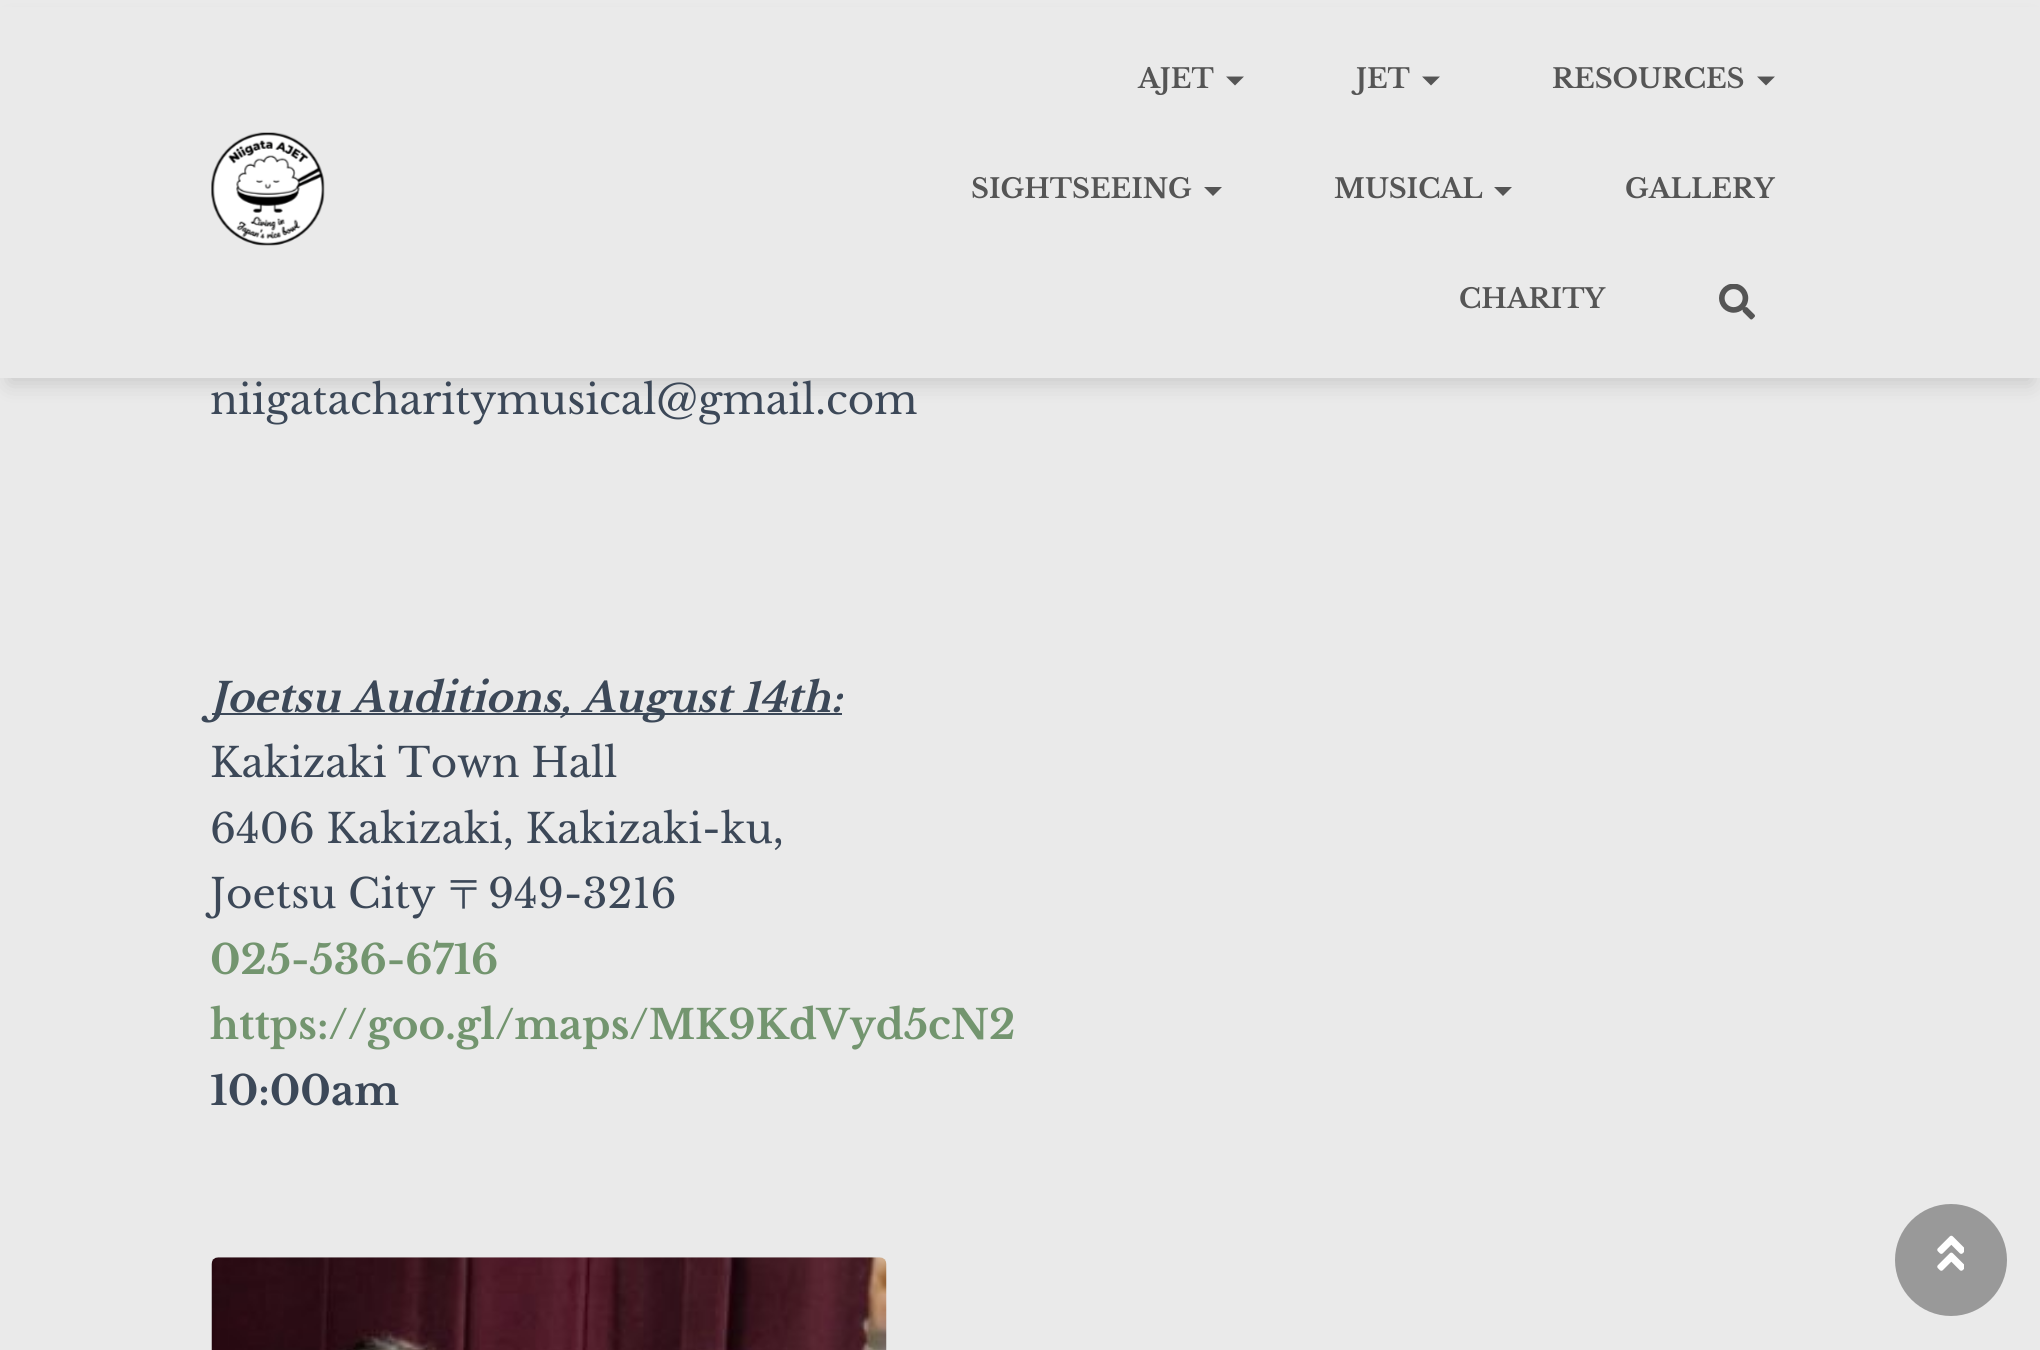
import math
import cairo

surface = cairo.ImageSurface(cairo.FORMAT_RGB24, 2040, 1350)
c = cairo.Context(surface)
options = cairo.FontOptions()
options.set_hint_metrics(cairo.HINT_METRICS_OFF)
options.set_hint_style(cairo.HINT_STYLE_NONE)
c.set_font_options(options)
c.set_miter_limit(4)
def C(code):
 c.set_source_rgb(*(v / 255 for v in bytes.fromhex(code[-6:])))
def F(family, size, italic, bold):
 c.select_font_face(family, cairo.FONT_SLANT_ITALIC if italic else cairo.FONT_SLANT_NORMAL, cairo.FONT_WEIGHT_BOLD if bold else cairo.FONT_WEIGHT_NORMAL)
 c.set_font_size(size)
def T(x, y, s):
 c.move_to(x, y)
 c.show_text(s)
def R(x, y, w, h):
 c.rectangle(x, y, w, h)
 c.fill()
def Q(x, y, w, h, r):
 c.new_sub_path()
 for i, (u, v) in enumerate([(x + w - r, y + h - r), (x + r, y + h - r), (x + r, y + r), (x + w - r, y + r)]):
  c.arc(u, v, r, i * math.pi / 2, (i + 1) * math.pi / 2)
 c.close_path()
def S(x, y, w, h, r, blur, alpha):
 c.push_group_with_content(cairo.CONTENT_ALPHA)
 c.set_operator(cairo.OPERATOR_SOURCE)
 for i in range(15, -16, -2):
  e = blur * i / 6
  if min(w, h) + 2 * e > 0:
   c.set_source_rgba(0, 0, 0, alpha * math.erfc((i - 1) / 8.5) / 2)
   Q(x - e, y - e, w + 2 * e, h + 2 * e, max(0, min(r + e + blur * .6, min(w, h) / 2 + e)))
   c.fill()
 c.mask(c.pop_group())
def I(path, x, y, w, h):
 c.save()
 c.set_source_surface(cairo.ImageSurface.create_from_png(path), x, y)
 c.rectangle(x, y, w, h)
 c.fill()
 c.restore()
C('eaeaea')
c.paint()
C('000000')
S(9,23,2023,360,0,11,.15)
C('eaeaea')
R(0,7,2040,371)
I('1.png',211,132,114,114)
F('Libre Baskerville',27,0,1)
C('555555')
T(1138,88,'AJET')
c.new_path()
c.move_to(1226,76.5)
c.line_to(1244,76.5)
c.line_to(1235,85.5)
c.close_path()
c.fill()
T(1356,88,'JET')
c.new_path()
c.move_to(1422,76.5)
c.line_to(1440,76.5)
c.line_to(1431,85.5)
c.close_path()
c.fill()
T(1552,88,'RESOURCES')
c.new_path()
c.move_to(1757,76.5)
c.line_to(1775,76.5)
c.line_to(1766,85.5)
c.close_path()
c.fill()
T(971,198,'SIGHTSEEING')
c.new_path()
c.move_to(1204,187)
c.line_to(1222,187)
c.line_to(1213,196)
c.close_path()
c.fill()
T(1334,198,'MUSICAL')
c.new_path()
c.move_to(1494,187)
c.line_to(1512,187)
c.line_to(1503,196)
c.close_path()
c.fill()
T(1625,198,'GALLERY')
T(1459,308,'CHARITY')
I('2.png',1719,284,36,36)
F('Libre Baskerville',40.5,0,0)
C('3c4858')
T(210,414,'niigatacharitymusical@gmail.com')
R(212,713,618,2)
F('Libre Baskerville',40.5,1,1)
T(210,712,'Joetsu Auditions, August 14th:')
R(830,713,12,2)
F('Libre Baskerville',40.5,0,0)
T(210,777,'Kakizaki Town Hall')
T(210,843,'6406 Kakizaki, Kakizaki-ku,')
T(210,908,'Joetsu City')
F('WenQuanYi Zen Hei Medium',40.5,0,0)
T(448,908,'〒')
F('Libre Baskerville',40.5,0,0)
T(488,908,'949-3216')
F('Libre Baskerville',40.5,0,1)
C('73956f')
T(210,974,'025-536-6716')
T(210,1039,'https://goo.gl/maps/MK9KdVyd5cN2')
C('3c4858')
T(210,1105,'10:00am')
I('3.png',211,1257,676,93)
C('999999')
c.arc(1951,1260,56,0,2 * math.pi)
c.fill()
I('4.png',1937,1235,27,36)
surface.write_to_png('o.png')
